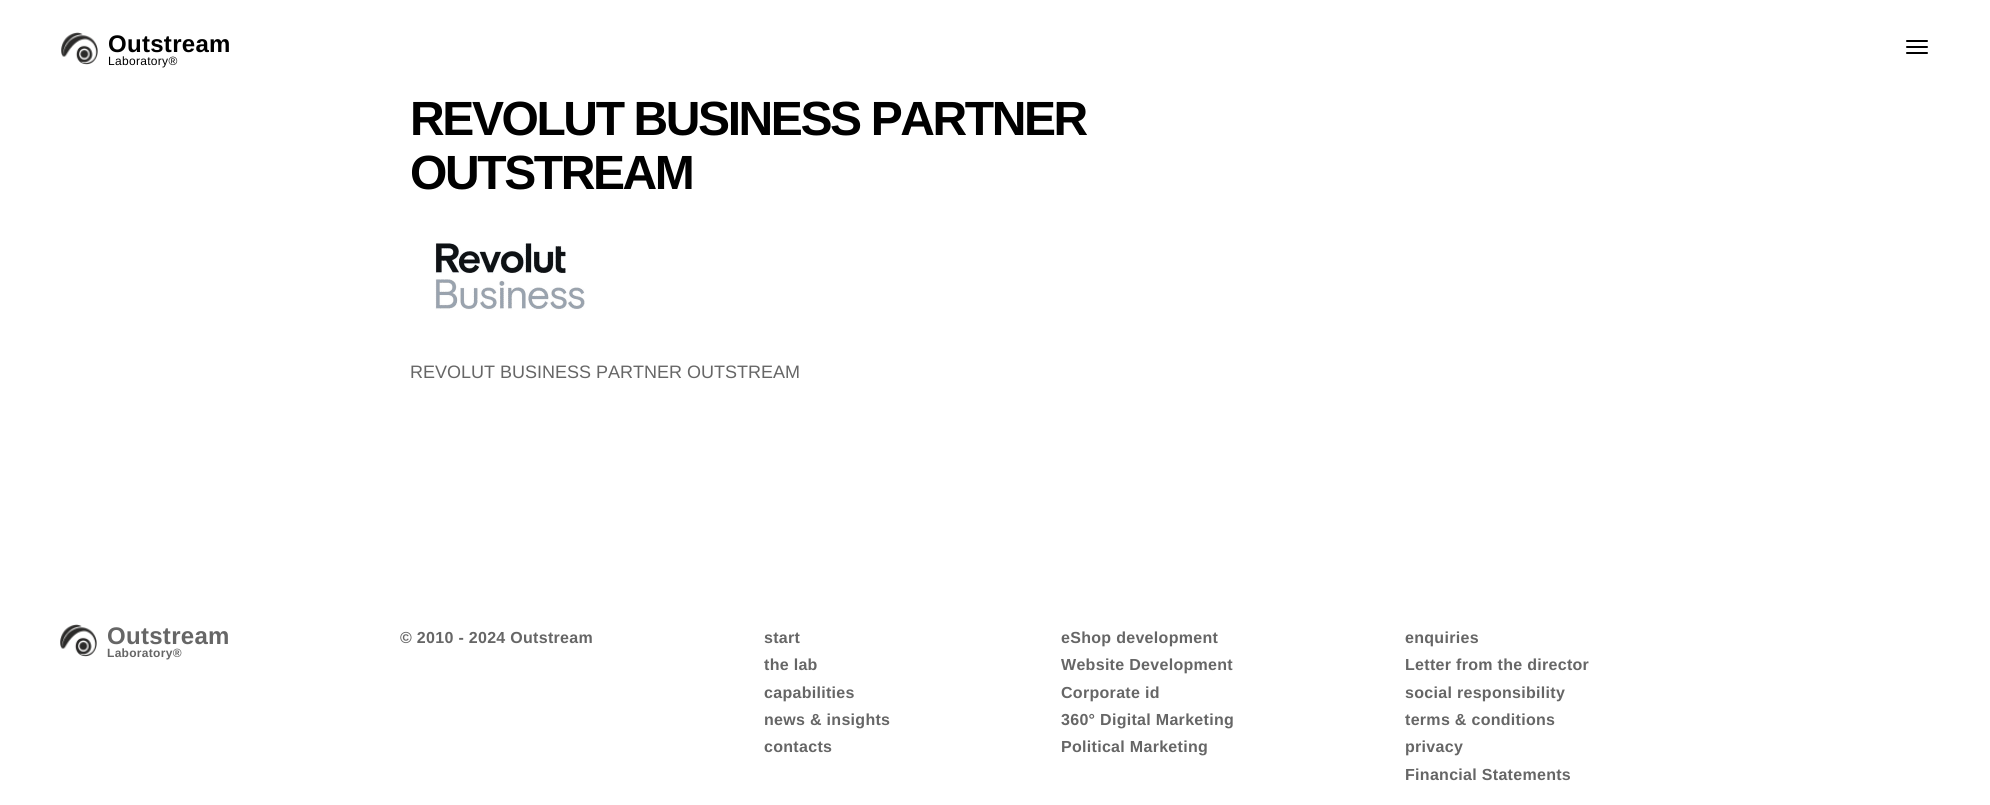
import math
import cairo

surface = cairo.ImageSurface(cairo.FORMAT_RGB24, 1990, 805)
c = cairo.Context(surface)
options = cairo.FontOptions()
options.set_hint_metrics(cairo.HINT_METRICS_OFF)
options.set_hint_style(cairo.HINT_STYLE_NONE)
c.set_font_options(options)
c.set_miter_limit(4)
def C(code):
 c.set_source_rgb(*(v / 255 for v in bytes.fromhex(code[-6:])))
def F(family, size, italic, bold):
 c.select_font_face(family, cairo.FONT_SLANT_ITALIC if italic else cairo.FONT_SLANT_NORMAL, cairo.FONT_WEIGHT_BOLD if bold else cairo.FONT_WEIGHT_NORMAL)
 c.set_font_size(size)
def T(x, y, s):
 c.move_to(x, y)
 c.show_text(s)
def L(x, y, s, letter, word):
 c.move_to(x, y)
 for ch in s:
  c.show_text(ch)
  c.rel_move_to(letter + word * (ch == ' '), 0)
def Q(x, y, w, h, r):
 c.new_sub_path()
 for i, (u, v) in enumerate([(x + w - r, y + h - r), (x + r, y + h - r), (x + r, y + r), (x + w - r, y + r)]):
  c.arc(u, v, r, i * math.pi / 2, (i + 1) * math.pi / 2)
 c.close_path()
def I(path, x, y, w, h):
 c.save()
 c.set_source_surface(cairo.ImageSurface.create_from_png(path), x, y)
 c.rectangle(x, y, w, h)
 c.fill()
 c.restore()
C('ffffff')
c.paint()
I('1.png',61,32,37,33)
F('Liberation Sans',24,0,1)
C('000000')
L(108,52,'Outstream',.3,0)
F('Liberation Sans',12,0,0)
L(108,65,'Laboratory®',.3,0)
Q(1906,40,22,2,1)
c.fill()
Q(1906,46,22,2,1)
c.fill()
Q(1906,52,22,2,1)
c.fill()
F('Liberation Sans',48,0,1)
L(410,135,'REVOLUT BUSINESS PARTNER',-2.4,0)
L(410,189,'OUTSTREAM',-2.4,0)
I('2.png',435,243,150,67)
F('Liberation Sans',18,0,0)
C('666666')
T(410,378,'REVOLUT BUSINESS PARTNER OUTSTREAM')
I('1.png',60,624,37,33)
F('Liberation Sans',24,0,1)
L(107,644,'Outstream',.3,0)
F('Liberation Sans',12,0,1)
L(107,657,'Laboratory®',.3,0)
F('Liberation Sans',16,0,1)
L(400,643,'© 2010 - 2024 Outstream',.3,0)
L(764,643,'start',.3,0)
L(764,670,'the lab',.3,0)
L(764,698,'capabilities',.3,0)
L(764,725,'news & insights',.3,0)
L(764,752,'contacts',.3,0)
L(1061,643,'eShop development',.3,0)
L(1061,670,'Website Development',.3,0)
L(1061,698,'Corporate id',.3,0)
L(1061,725,'360° Digital Marketing',.3,0)
L(1061,752,'Political Marketing',.3,0)
L(1405,643,'enquiries',.3,0)
L(1405,670,'Letter from the director',.3,0)
L(1405,698,'social responsibility',.3,0)
L(1405,725,'terms & conditions',.3,0)
L(1405,752,'privacy',.3,0)
L(1405,780,'Financial Statements',.3,0)
surface.write_to_png('o.png')
